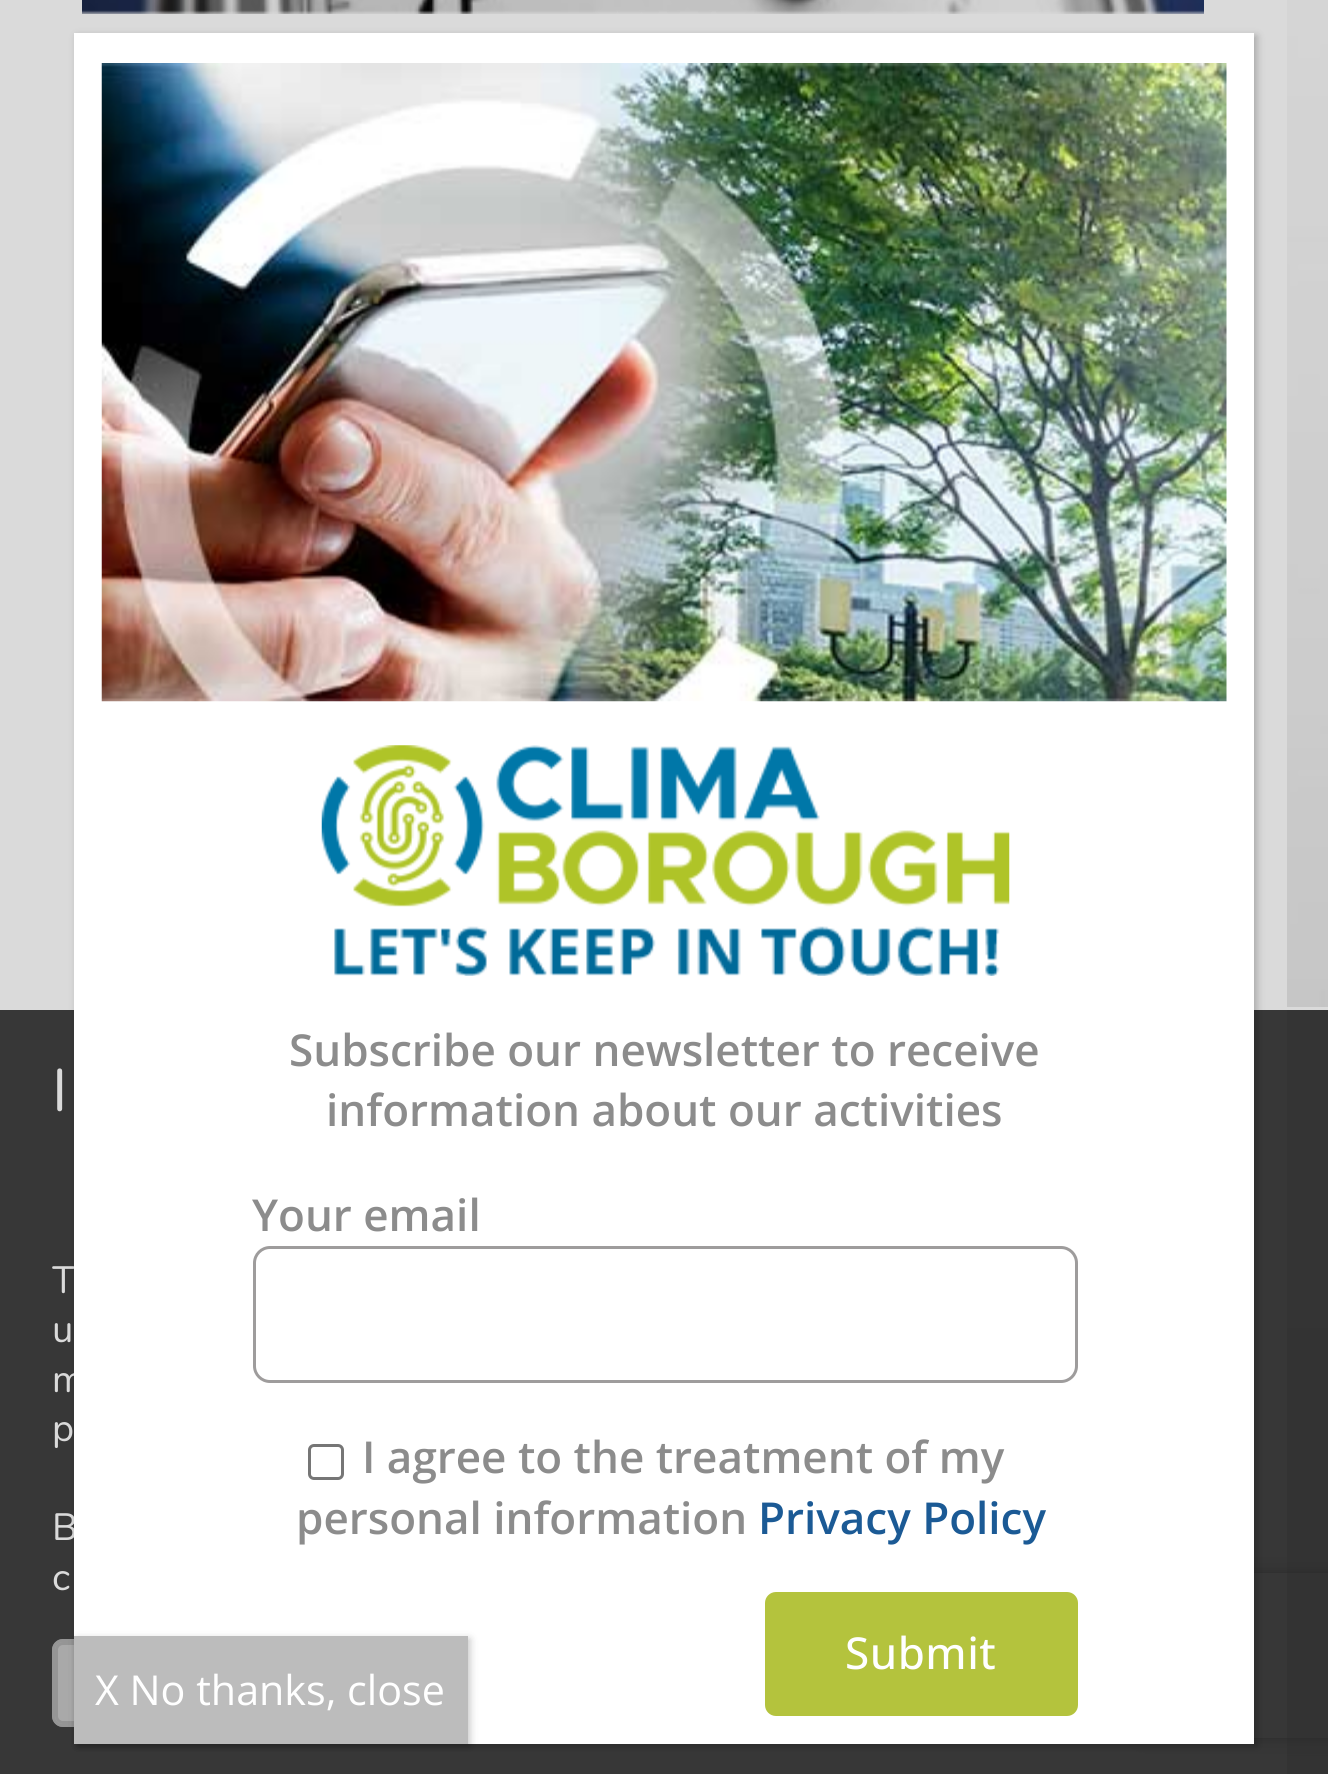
import math
import cairo

surface = cairo.ImageSurface(cairo.FORMAT_RGB24, 1328, 1774)
c = cairo.Context(surface)
options = cairo.FontOptions()
options.set_hint_metrics(cairo.HINT_METRICS_OFF)
options.set_hint_style(cairo.HINT_STYLE_NONE)
c.set_font_options(options)
c.set_miter_limit(4)
def C(code):
 c.set_source_rgb(*(v / 255 for v in bytes.fromhex(code[-6:])))
def F(family, size, italic, bold):
 c.select_font_face(family, cairo.FONT_SLANT_ITALIC if italic else cairo.FONT_SLANT_NORMAL, cairo.FONT_WEIGHT_BOLD if bold else cairo.FONT_WEIGHT_NORMAL)
 c.set_font_size(size)
def T(x, y, s):
 c.move_to(x, y)
 c.show_text(s)
def L(x, y, s, letter, word):
 c.move_to(x, y)
 for ch in s:
  c.show_text(ch)
  c.rel_move_to(letter + word * (ch == ' '), 0)
def R(x, y, w, h):
 c.rectangle(x, y, w, h)
 c.fill()
def Q(x, y, w, h, r):
 c.new_sub_path()
 for i, (u, v) in enumerate([(x + w - r, y + h - r), (x + r, y + h - r), (x + r, y + r), (x + w - r, y + r)]):
  c.arc(u, v, r, i * math.pi / 2, (i + 1) * math.pi / 2)
 c.close_path()
def S(x, y, w, h, r, blur, alpha):
 c.push_group_with_content(cairo.CONTENT_ALPHA)
 c.set_operator(cairo.OPERATOR_SOURCE)
 for i in range(15, -16, -2):
  e = blur * i / 6
  if min(w, h) + 2 * e > 0:
   c.set_source_rgba(0, 0, 0, alpha * math.erfc((i - 1) / 8.5) / 2)
   Q(x - e, y - e, w + 2 * e, h + 2 * e, max(0, min(r + e + blur * .6, min(w, h) / 2 + e)))
   c.fill()
 c.mask(c.pop_group())
def I(path, x, y, w, h):
 c.save()
 c.set_source_surface(cairo.ImageSurface.create_from_png(path), x, y)
 c.rectangle(x, y, w, h)
 c.fill()
 c.restore()
C('ffffff')
c.paint()
C('dadada')
R(0,0,1287,1774)
I('1.png',82,0,1122,14)
I('2.png',1287,0,41,1774)
c.save()
c.set_fill_rule(cairo.FILL_RULE_EVEN_ODD)
c.new_path()
c.move_to(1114,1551)
c.line_to(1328,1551)
c.line_to(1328,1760)
c.line_to(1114,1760)
c.close_path()
c.move_to(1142,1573)
c.line_to(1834,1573)
c.curve_to(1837.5,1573,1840,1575.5,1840,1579)
c.line_to(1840,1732)
c.curve_to(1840,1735.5,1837.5,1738,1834,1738)
c.line_to(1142,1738)
c.curve_to(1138.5,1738,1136,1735.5,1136,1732)
c.line_to(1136,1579)
c.curve_to(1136,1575.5,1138.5,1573,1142,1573)
c.close_path()
c.clip()
C('6e6e6e')
S(1136,1573,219,165,6,7,1)
c.restore()
c.set_source_rgba(0.129,0.129,0.129,0.88)
R(0,1010,1328,764)
C('dadada')
R(1287,1007,41,3)
F('Nunito',60,0,0)
L(52,1111,'I',-1,0)
F('Nunito',38,0,0)
L(52,1293,'T',1,0)
L(52,1342,'u',1,0)
L(52,1392,'m',1,0)
L(52,1441,'p',1,0)
L(52,1540,'B',1,0)
L(52,1590,'c',1,0)
c.set_source_rgba(0.855,0.855,0.855,0.7)
Q(52,1639,275,88,11)
c.fill()
Q(56.5,1643.5,267,79,6.5)
c.set_source_rgba(0.553,0.553,0.553,0.7)
c.set_line_width(3)
c.stroke()
Q(53.5,1640.5,272,85,9.5)
c.stroke()
C('020202')
S(77,36,1180,1710,0,4,.23)
C('ffffff')
R(74,33,1180,1711)
I('3.png',101,63,1126,639)
I('4.png',321,745,689,231)
F('Open Sans SemiBold',44,0,0)
C('8c8c8c')
T(289,1066,'Subscribe our newsletter to receive')
T(326,1126,'information about our activities')
T(252,1231,'Your email')
Q(254.5,1247.5,822,134,15.5)
C('9e9c9c')
c.stroke()
Q(309.5,1445.5,33,33,4.5)
C('767676')
c.stroke()
C('8c8c8c')
T(362,1473,'I agree to the treatment of my')
T(296,1534,'personal information')
C('1b5a95')
T(758,1534,'Privacy Policy')
C('b4c33d')
Q(765,1592,313,124,11)
c.fill()
F('Open Sans Medium',44,0,0)
C('ffffff')
L(845,1669,'Submit',.5,0)
C('020202')
S(77,1639,393,107,0,4,.23)
C('bcbcbc')
R(74,1636,394,108)
F('Open Sans',41.25,0,0)
C('ffffff')
T(95,1705,'X No thanks, close')
surface.write_to_png('o.png')
